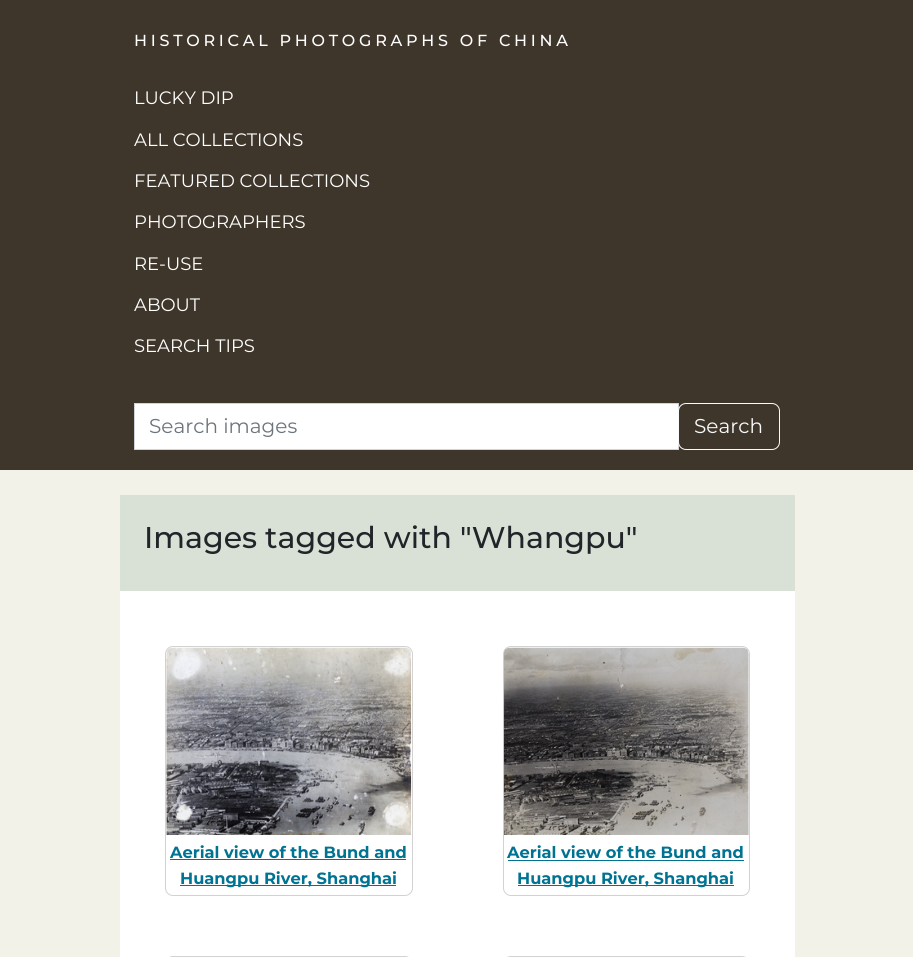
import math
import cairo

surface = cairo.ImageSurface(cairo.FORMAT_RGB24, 913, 957)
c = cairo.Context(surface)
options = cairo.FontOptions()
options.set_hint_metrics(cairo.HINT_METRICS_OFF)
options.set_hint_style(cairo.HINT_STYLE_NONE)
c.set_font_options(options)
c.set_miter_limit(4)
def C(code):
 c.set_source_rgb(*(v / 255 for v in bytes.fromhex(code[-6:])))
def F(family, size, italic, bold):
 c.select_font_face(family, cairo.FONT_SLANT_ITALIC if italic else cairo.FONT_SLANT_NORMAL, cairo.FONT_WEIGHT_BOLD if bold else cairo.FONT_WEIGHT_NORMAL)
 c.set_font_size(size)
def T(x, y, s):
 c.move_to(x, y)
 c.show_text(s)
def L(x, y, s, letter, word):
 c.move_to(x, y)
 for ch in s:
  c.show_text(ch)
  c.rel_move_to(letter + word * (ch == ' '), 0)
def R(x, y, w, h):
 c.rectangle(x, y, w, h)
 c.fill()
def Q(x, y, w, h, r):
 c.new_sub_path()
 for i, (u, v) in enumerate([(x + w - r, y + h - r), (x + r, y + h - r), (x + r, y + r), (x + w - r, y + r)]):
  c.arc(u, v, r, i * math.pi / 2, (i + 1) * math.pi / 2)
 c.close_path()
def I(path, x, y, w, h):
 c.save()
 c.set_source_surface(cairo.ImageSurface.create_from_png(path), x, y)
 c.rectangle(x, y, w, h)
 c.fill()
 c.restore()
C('f2f2e9')
c.paint()
C('3f362b')
R(0,0,913,470)
F('Montserrat Medium',16,0,0)
C('ffffff')
L(134,46,'HISTORICAL PHOTOGRAPHS OF CHINA',3.75,0)
F('Montserrat',18,0,0)
T(134,104,'LUCKY DIP')
T(134,146,'ALL COLLECTIONS')
T(134,187,'FEATURED COLLECTIONS')
T(134,228,'PHOTOGRAPHERS')
T(134,270,'RE-USE')
T(134,311,'ABOUT')
T(134,352,'SEARCH TIPS')
c.rectangle(134.5,403.5,544,46)
c.fill_preserve()
C('ced4da')
c.set_line_width(1)
c.stroke()
F('Montserrat',20,0,0)
C('6c757d')
T(149,433,'Search images')
Q(678.5,403.5,101,46,7.5)
C('f8f9fa')
c.stroke()
T(694,433,'Search')
C('ffffff')
R(120,591,675,366)
C('d9e0d6')
R(120,495,675,96)
F('Montserrat Medium',30,0,0)
C('212529')
T(144,548,'Images tagged with "Whangpu"')
Q(165.5,646.5,247,249,7.5)
C('d2d2d2')
c.stroke()
I('1.png',166,647,246,188)
F('Montserrat',16.25,0,1)
C('007392')
T(170,858,'Aerial view of the Bund and')
R(170,859,236,1)
R(180,885,216,1)
T(180,884,'Huangpu River, Shanghai')
Q(503.5,646.5,246,249,7.5)
C('d2d2d2')
c.stroke()
I('2.png',503,647,246,188)
C('007392')
T(507,858,'Aerial view of the Bund and')
R(508,860,236,1)
R(518,885,216,1)
T(517,884,'Huangpu River, Shanghai')
Q(165.5,956.5,247,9,7.5)
C('d2d2d2')
c.stroke()
Q(503.5,956.5,246,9,7.5)
c.stroke()
surface.write_to_png('o.png')
